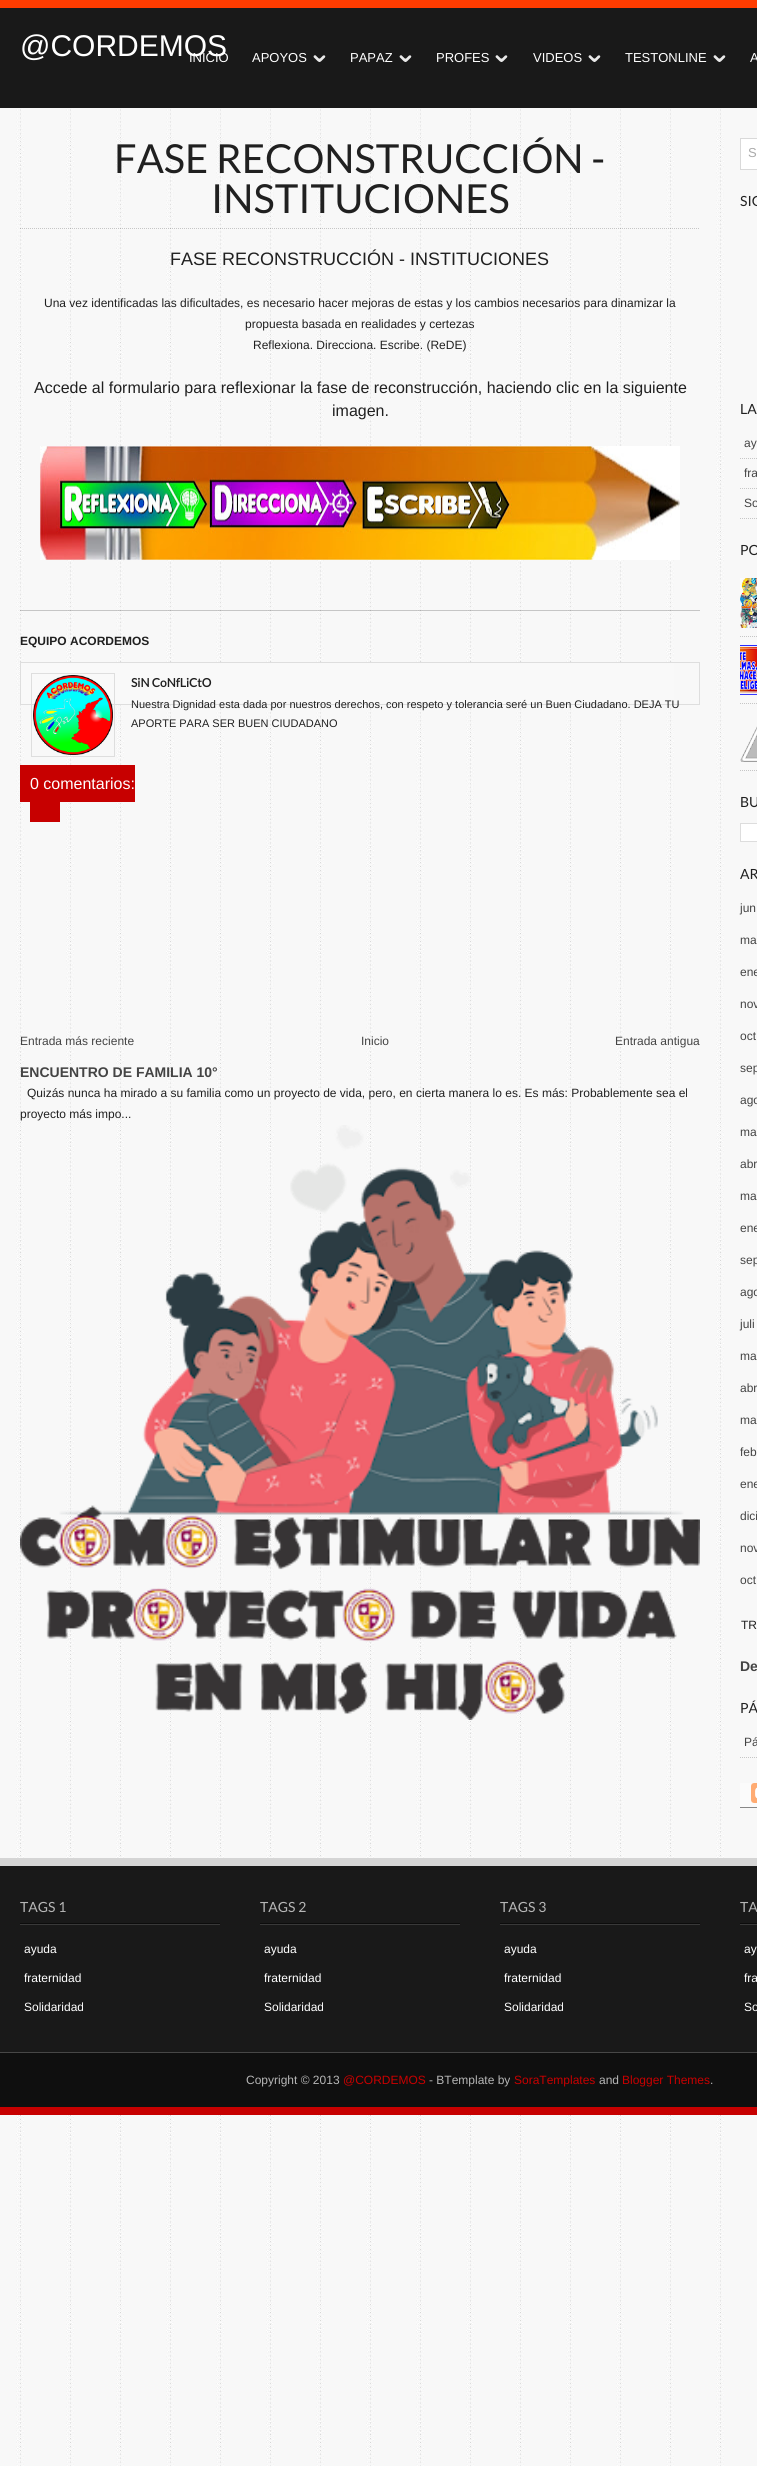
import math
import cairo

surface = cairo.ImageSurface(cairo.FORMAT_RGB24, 757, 2466)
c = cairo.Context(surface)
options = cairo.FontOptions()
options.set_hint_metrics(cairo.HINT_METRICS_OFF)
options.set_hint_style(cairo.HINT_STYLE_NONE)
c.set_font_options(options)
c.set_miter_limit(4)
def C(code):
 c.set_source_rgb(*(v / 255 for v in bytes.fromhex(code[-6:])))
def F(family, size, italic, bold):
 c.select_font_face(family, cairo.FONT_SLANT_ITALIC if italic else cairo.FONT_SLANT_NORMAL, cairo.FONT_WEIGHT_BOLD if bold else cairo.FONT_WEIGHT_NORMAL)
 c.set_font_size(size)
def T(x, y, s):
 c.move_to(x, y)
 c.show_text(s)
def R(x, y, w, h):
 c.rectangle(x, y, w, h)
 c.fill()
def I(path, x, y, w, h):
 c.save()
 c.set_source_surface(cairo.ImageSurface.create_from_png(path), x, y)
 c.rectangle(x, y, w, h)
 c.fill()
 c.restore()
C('ffffff')
c.paint()
I('1.png',0,108,757,2358)
C('191919')
R(0,8,757,100)
C('ff3c00')
R(0,0,757,8)
F('Liberation Sans',13,0,0)
C('ffffff')
T(189,62,'INICIO')
F('Liberation Sans',30,0,0)
T(20,56,'@CORDEMOS')
I('2.png',313,55,13,7)
F('Liberation Sans',13,0,0)
T(252,62,'APOYOS')
I('2.png',399,55,13,7)
T(350,62,'PAPAZ')
I('2.png',495,55,13,7)
T(436,62,'PROFES')
I('2.png',588,55,13,7)
T(533,62,'VIDEOS')
I('2.png',713,55,13,7)
T(625,62,'TESTONLINE')
T(750,62,'A')
c.set_source_rgba(0,0,0,0.2)
R(20,610,680,1)
c.new_path()
c.move_to(20,228.5)
c.line_to(700,228.5)
c.set_line_width(1)
c.set_dash([1,1])
c.stroke()
F('Lato',40,0,0)
C('202020')
T(114,173,'FASE RECONSTRUCCIÓN -')
T(211,213,'INSTITUCIONES')
F('Liberation Sans',18,0,0)
T(170,265,'FASE RECONSTRUCCIÓN - INSTITUCIONES')
F('Liberation Sans',12,0,0)
T(44,307,'Una vez identificadas las dificultades, es necesario hacer mejoras de estas y los cambios necesarios para dinamizar la')
T(245,328,'propuesta basada en realidades y certezas')
T(253,349,'Reflexiona. Direcciona. Escribe. (ReDE)')
F('Liberation Sans',16,0,0)
T(34,393,'Accede al formulario para reflexionar la fase de reconstrucción, haciendo clic en la siguiente')
T(332,416,'imagen.')
I('3.png',40,446,640,114)
F('Liberation Sans',12,0,1)
T(20,645,'EQUIPO ACORDEMOS')
C('f9f9f9')
R(21,663,653,41)
c.rectangle(20.5,662.5,679,42)
C('dedede')
c.set_dash([])
c.stroke()
c.rectangle(31.5,673.5,83,83)
c.stroke()
I('4.png',33,675,80,80)
F('Lato',12,0,1)
C('202020')
T(131,687,'SiN CoNfLiCtO')
F('Liberation Sans',11,0,0)
T(131,708,'Nuestra Dignidad esta dada por nuestros derechos, con respeto y tolerancia seré un Buen Ciudadano. DEJA TU')
T(131,727,'APORTE PARA SER BUEN CIUDADANO')
C('c70000')
R(20,765,115,37)
F('Liberation Sans',16,0,0)
C('ffffff')
T(30,789,'0 comentarios:')
C('c70000')
R(30,802,30,20)
F('Liberation Sans',12,0,0)
C('444444')
T(20,1045,'Entrada más reciente')
T(361,1045,'Inicio')
T(615,1045,'Entrada antigua')
F('Liberation Sans',14,0,1)
T(20,1077,'ENCUENTRO DE FAMILIA 10°')
F('Liberation Sans',12,0,0)
C('202020')
T(27,1097,'Quizás nunca ha mirado a su familia como un proyecto de vida, pero, en cierta manera lo es. Es más: Probablemente sea el')
T(20,1118,'proyecto más impo...')
I('5.png',20,1125,680,595)
C('ffffff')
c.rectangle(740.5,138.5,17,31)
c.fill_preserve()
C('d9d9d9')
c.stroke()
F('Liberation Sans',13,0,0)
C('aaaaaa')
T(748,157,'S')
F('Lato',14,0,0)
C('202020')
T(740,206,'SIG')
T(740,414,'LA')
c.new_path()
c.move_to(740,458.5)
c.line_to(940,458.5)
c.move_to(740,488.5)
c.line_to(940,488.5)
c.move_to(740,518.5)
c.line_to(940,518.5)
C('c6c6c6')
c.set_dash([1,1])
c.stroke()
F('Liberation Sans',12,0,0)
C('444444')
T(744,447,'ay')
T(744,477,'fra')
T(744,507,'So')
F('Lato',14,0,0)
C('202020')
T(740,555,'PO')
c.new_path()
c.move_to(740,636.5)
c.line_to(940,636.5)
C('c6c6c6')
c.stroke()
I('6.png',740,578,17,50)
c.new_path()
c.move_to(740,703.5)
c.line_to(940,703.5)
c.stroke()
I('7.png',740,645,17,50)
c.new_path()
c.move_to(740,770.5)
c.line_to(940,770.5)
c.stroke()
I('8.png',740,726,17,36)
C('202020')
T(740,807,'BU')
C('ffffff')
c.rectangle(740.5,823.5,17,18)
c.fill_preserve()
C('dddddd')
c.set_dash([])
c.stroke()
C('202020')
T(740,879,'AR')
F('Liberation Sans',12,0,0)
C('444444')
T(740,912,'jun')
T(740,944,'ma')
T(740,976,'ene')
T(740,1008,'nov')
T(740,1040,'oct')
T(740,1072,'sep')
T(740,1104,'ago')
T(740,1136,'ma')
T(740,1168,'abr')
T(740,1200,'ma')
T(740,1232,'ene')
T(740,1264,'sep')
T(740,1296,'ago')
T(740,1328,'juli')
T(740,1360,'ma')
T(740,1392,'abr')
T(740,1424,'ma')
T(740,1456,'feb')
T(740,1488,'ene')
T(740,1520,'dici')
T(740,1552,'nov')
T(740,1584,'oct')
C('202020')
T(741,1629,'TR')
F('Liberation Sans',14,0,1)
C('444444')
T(740,1671,'De')
F('Lato',14,0,0)
C('202020')
T(740,1713,'PÁ')
c.new_path()
c.move_to(740,1757.5)
c.line_to(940,1757.5)
C('c6c6c6')
c.set_dash([1,1])
c.stroke()
F('Liberation Sans',12,0,0)
C('444444')
T(744,1746,'Pá')
I('9.png',740,1783,17,25)
C('191919')
R(0,1866,757,186)
C('d5d5d5')
R(0,1858,757,8)
C('474747')
R(0,2052,757,1)
I('10.png',20,1923,200,2)
F('Lato',14,0,0)
C('b6b6b6')
T(20,1912,'TAGS 1')
F('Liberation Sans',12,0,0)
C('ffffff')
T(24,1953,'ayuda')
T(24,1982,'fraternidad')
T(24,2011,'Solidaridad')
I('10.png',260,1923,200,2)
F('Lato',14,0,0)
C('b6b6b6')
T(260,1912,'TAGS 2')
F('Liberation Sans',12,0,0)
C('ffffff')
T(264,1953,'ayuda')
T(264,1982,'fraternidad')
T(264,2011,'Solidaridad')
I('10.png',500,1923,200,2)
F('Lato',14,0,0)
C('b6b6b6')
T(500,1912,'TAGS 3')
F('Liberation Sans',12,0,0)
C('ffffff')
T(504,1953,'ayuda')
T(504,1982,'fraternidad')
T(504,2011,'Solidaridad')
I('11.png',740,1923,17,2)
F('Lato',14,0,0)
C('b6b6b6')
T(740,1912,'TA')
F('Liberation Sans',12,0,0)
C('ffffff')
T(744,1953,'ay')
T(744,1982,'fra')
T(744,2011,'So')
C('0f0f0f')
R(0,2053,757,54)
C('c70000')
R(0,2107,757,8)
C('b6b6b6')
T(246,2084,'Copyright © 2013')
C('c70000')
T(343,2084,'@CORDEMOS')
C('b6b6b6')
T(429,2084,'- BTemplate by')
C('c70000')
T(514,2084,'SoraTemplates')
C('b6b6b6')
T(599,2084,'and')
C('c70000')
T(622,2084,'Blogger Themes')
C('b6b6b6')
T(710,2084,'.')
surface.write_to_png('o.png')
